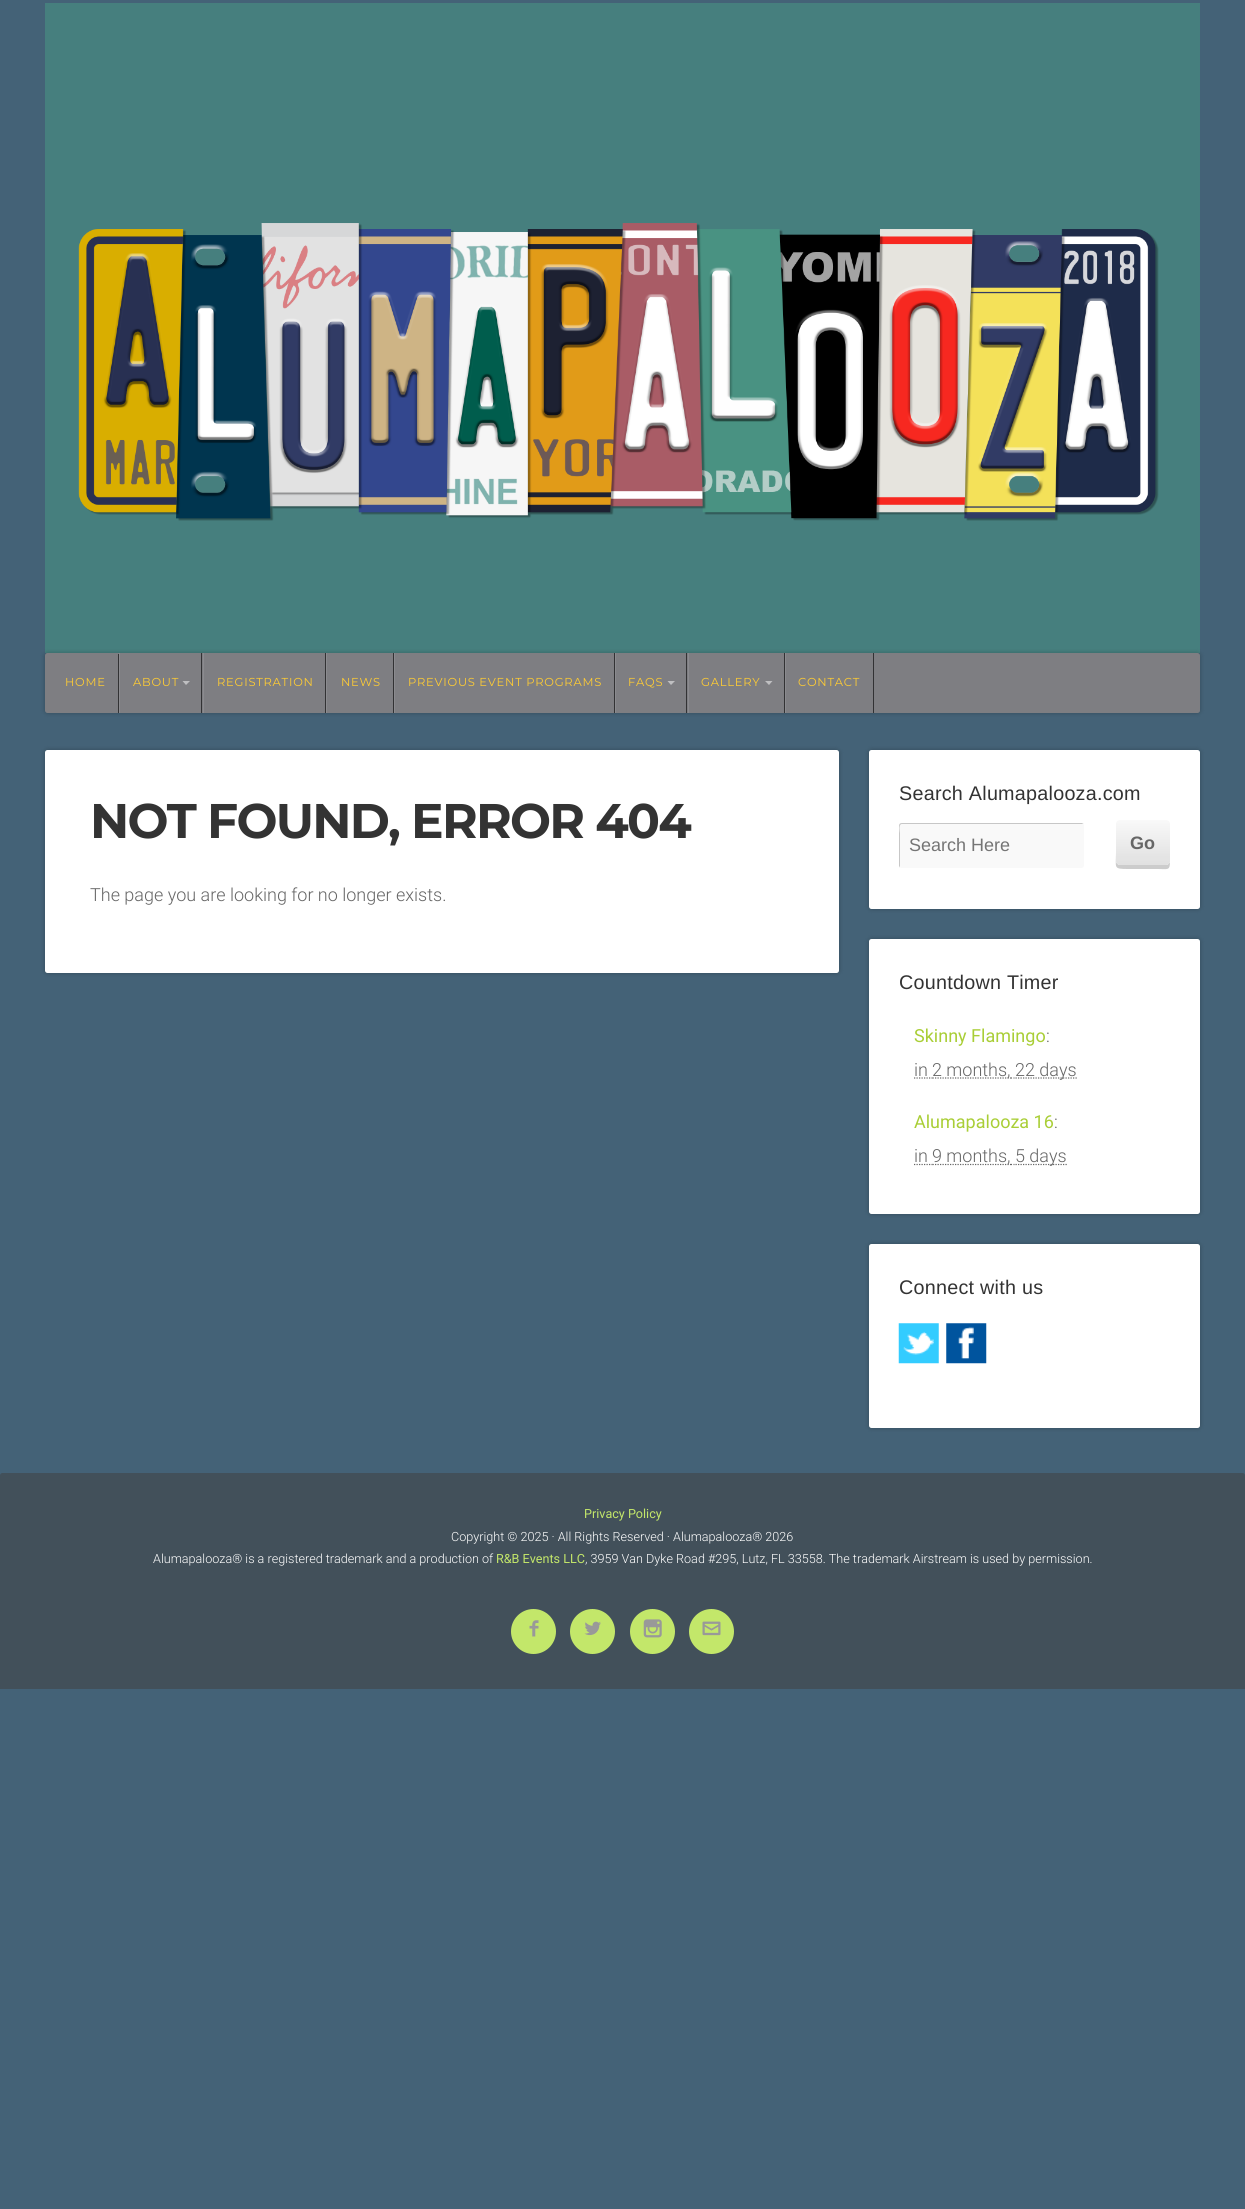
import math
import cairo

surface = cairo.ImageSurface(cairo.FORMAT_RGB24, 1245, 2209)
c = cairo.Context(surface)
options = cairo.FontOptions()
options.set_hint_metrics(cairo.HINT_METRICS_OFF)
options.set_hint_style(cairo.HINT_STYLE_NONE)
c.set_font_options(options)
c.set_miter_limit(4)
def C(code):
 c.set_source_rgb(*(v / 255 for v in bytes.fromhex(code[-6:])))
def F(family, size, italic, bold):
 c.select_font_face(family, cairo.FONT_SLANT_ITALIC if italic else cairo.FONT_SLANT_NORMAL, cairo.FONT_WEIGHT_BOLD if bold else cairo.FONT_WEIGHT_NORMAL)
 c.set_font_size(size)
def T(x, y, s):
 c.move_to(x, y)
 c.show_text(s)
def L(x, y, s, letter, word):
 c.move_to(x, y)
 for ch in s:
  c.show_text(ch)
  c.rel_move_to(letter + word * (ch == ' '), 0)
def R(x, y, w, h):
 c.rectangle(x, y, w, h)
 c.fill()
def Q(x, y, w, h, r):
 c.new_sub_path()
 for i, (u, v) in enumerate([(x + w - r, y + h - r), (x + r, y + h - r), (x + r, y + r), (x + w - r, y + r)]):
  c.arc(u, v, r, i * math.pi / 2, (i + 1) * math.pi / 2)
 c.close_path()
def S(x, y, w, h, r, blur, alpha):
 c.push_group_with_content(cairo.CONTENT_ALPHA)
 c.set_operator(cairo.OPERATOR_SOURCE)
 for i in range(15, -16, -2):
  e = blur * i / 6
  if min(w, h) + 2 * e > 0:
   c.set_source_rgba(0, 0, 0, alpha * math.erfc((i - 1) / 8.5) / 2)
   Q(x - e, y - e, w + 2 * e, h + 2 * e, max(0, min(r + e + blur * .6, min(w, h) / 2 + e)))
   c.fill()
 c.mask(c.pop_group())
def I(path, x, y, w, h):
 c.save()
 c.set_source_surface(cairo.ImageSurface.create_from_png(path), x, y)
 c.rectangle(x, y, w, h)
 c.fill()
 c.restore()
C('446277')
c.paint()
C('467f7e')
R(45,3,1155,650)
I('1.png',78,223,1081,298)
C('000000')
S(45,653,1155,60,2.5,2.5,.24)
C('7e7e82')
Q(45,653,1155,60,2.5)
c.fill()
C('323234')
R(118,654,1,59)
F('Montserrat',11.5,0,0)
C('ffcc33')
L(65,686,'HOME',.75,0)
C('323234')
R(201,653,1,60)
C('8b8b8f')
R(119,653,1,60)
C('ffcc33')
L(133,686,'ABOUT',.75,0)
C('bfbfc1')
c.new_path()
c.move_to(182.5,681)
c.line_to(190,681)
c.line_to(186,685)
c.close_path()
c.fill()
C('323234')
R(325,653,1,60)
C('8b8b8f')
R(203,653,1,60)
C('ffcc33')
L(217,686,'REGISTRATION',.75,0)
C('323234')
R(393,653,1,60)
C('8b8b8f')
R(326,653,1,60)
C('ffcc33')
L(341,686,'NEWS',.75,0)
C('323234')
R(614,653,1,60)
C('8b8b8f')
R(394,653,1,60)
C('ffcc33')
L(408,686,'PREVIOUS EVENT PROGRAMS',.75,0)
C('323234')
R(686,653,1,60)
C('8b8b8f')
R(615,653,1,60)
C('ffcc33')
L(628,686,'FAQS',.75,0)
C('bfbfc1')
c.new_path()
c.move_to(667.5,681)
c.line_to(675,681)
c.line_to(671,685)
c.close_path()
c.fill()
C('323234')
R(784,653,1,60)
C('8b8b8f')
R(688,653,1,60)
C('ffcc33')
L(701,686,'GALLERY',.75,0)
C('bfbfc1')
c.new_path()
c.move_to(765,681)
c.line_to(772.5,681)
c.line_to(769,685)
c.close_path()
c.fill()
C('323234')
R(873,653,1,60)
C('8b8b8f')
R(785,653,1,60)
C('ffcc33')
L(798,686,'CONTACT',.75,0)
C('000000')
S(45,750,794,223,2.5,2.5,.24)
C('ffffff')
Q(45,750,794,223,2.5)
c.fill()
F('Montserrat',48.6,0,1)
C('333333')
L(90,838,'NOT FOUND, ERROR 404',-1.75,0)
F('Roboto Light',18,0,0)
C('666666')
T(90,901,'The page you are looking for no longer exists.')
C('000000')
S(869,750,331,159,2.5,2.5,.24)
C('ffffff')
Q(869,750,331,159,2.5)
c.fill()
F('Liberation Sans',19.75,0,0)
C('333333')
L(899,800,'Search Alumapalooza.com',.25,0)
C('f9f9f9')
Q(899,823,185,45,2.5)
c.fill()
C('c7c7c7')
c.new_path()
c.move_to(902,824)
c.line_to(1084,824)
c.curve_to(1083,824,1082,823,1082,823)
c.line_to(902,823)
c.curve_to(900,823,899,824,899,826)
c.line_to(899,866)
c.curve_to(899,866,900,867,900,868)
c.line_to(900,833)
c.curve_to(900,833,898,824,902,824)
c.close_path()
c.fill()
F('Liberation Sans',18,0,0)
C('757575')
T(909,851,'Search Here')
C('cccccc')
c.new_path()
c.move_to(1116,827)
c.line_to(1116,853)
c.curve_to(1116,868,1113,869,1128,869)
c.line_to(1158,869)
c.curve_to(1168,869,1170,871,1170,861)
c.curve_to(1170,863,1168,865,1166,865)
c.line_to(1120,865)
c.curve_to(1118,865,1116,863,1116,861)
c.close_path()
c.fill()
C('f9f9f9')
Q(1116,820,54,45,4)
c.fill()
gradient = cairo.LinearGradient(1143,820,1143,865)
gradient.add_color_stop_rgba(0,0,0,0,0)
gradient.add_color_stop_rgba(1,0,0,0,.1)
c.set_source(gradient)
Q(1116,820,54,45,4)
c.fill()
F('Liberation Sans',18,0,1)
C('666666')
T(1130,849,'Go')
C('000000')
S(869,939,331,275,2.5,2.5,.24)
C('ffffff')
Q(869,939,331,275,2.5)
c.fill()
F('Liberation Sans',19.75,0,0)
C('333333')
L(899,989,'Countdown Timer',.25,0)
F('Roboto',18,0,0)
C('a9ce36')
T(914,1042,'Skinny Flamingo')
F('Roboto Light',18,0,0)
C('666666')
T(1046,1042,':')
T(914,1076,'in')
c.new_path()
c.move_to(914,1078)
c.line_to(932.5,1078)
c.set_line_width(1.2)
c.set_dash([1.25,1.25])
c.stroke()
c.new_path()
c.move_to(932.5,1078)
c.line_to(1011,1078)
c.stroke()
T(932,1076,'2 months,')
c.new_path()
c.move_to(1015.5,1078)
c.line_to(1077,1078)
c.stroke()
T(1015,1076,'22 days')
c.new_path()
c.move_to(1011,1078)
c.line_to(1012,1078)
c.move_to(1013.5,1078)
c.line_to(1014.5,1078)
c.set_dash([])
c.stroke()
F('Roboto',18,0,0)
C('a9ce36')
T(914,1128,'Alumapalooza 16')
F('Roboto Light',18,0,0)
C('666666')
T(1054,1128,':')
T(914,1162,'in')
c.new_path()
c.move_to(914,1164.5)
c.line_to(932.5,1164.5)
c.set_dash([1.25,1.25])
c.stroke()
c.new_path()
c.move_to(932.5,1164.5)
c.line_to(1011,1164.5)
c.stroke()
T(932,1162,'9 months,')
c.new_path()
c.move_to(1015.5,1164.5)
c.line_to(1067,1164.5)
c.stroke()
T(1015,1162,'5 days')
c.new_path()
c.move_to(1011,1164.5)
c.line_to(1012,1164.5)
c.move_to(1013.5,1164.5)
c.line_to(1014.5,1164.5)
c.set_dash([])
c.stroke()
C('000000')
S(869,1244,331,184,2.5,2.5,.24)
C('ffffff')
Q(869,1244,331,184,2.5)
c.fill()
F('Liberation Sans',19.75,0,0)
C('333333')
L(899,1294,'Connect with us',.25,0)
I('2.png',898,1323,41,41)
I('3.png',946,1323,41,41)
C('42505a')
c.new_path()
c.move_to(2.5,1473)
c.line_to(1242.5,1473)
c.curve_to(1244,1473,1245,1474,1245,1475.5)
c.line_to(1245,1689)
c.line_to(0,1689)
c.line_to(0,1475.5)
c.curve_to(0,1474,1,1473,2.5,1473)
c.close_path()
c.fill()
F('Roboto',12.6,0,0)
C('c3e76a')
T(584,1518,'Privacy Policy')
F('Roboto Light',12.6,0,0)
C('ffffff')
T(451,1541,'Copyright © 2025 · All Rights Reserved · Alumapalooza® 2026')
T(153,1563,'Alumapalooza® is a registered trademark and a production of')
F('Roboto',12.6,0,0)
C('c3e76a')
T(496,1563,'R&B Events LLC')
F('Roboto Light',12.6,0,0)
C('ffffff')
T(585,1563,', 3959 Van Dyke Road #295, Lutz, FL 33558. The trademark Airstream is used by permission.')
C('c3e76a')
c.new_path()
c.arc(533.5,1631.5,22.5,0,2 * math.pi)
c.fill()
I('4.png',529,1620,10,17)
c.arc(592.5,1631.5,22.5,0,2 * math.pi)
c.fill()
I('5.png',584,1621,17,15)
c.arc(652.5,1631.5,22.5,0,2 * math.pi)
c.fill()
I('6.png',643,1619,19,19)
c.arc(711.5,1631.5,22.5,0,2 * math.pi)
c.fill()
I('7.png',702,1621,19,15)
surface.write_to_png('o.png')
